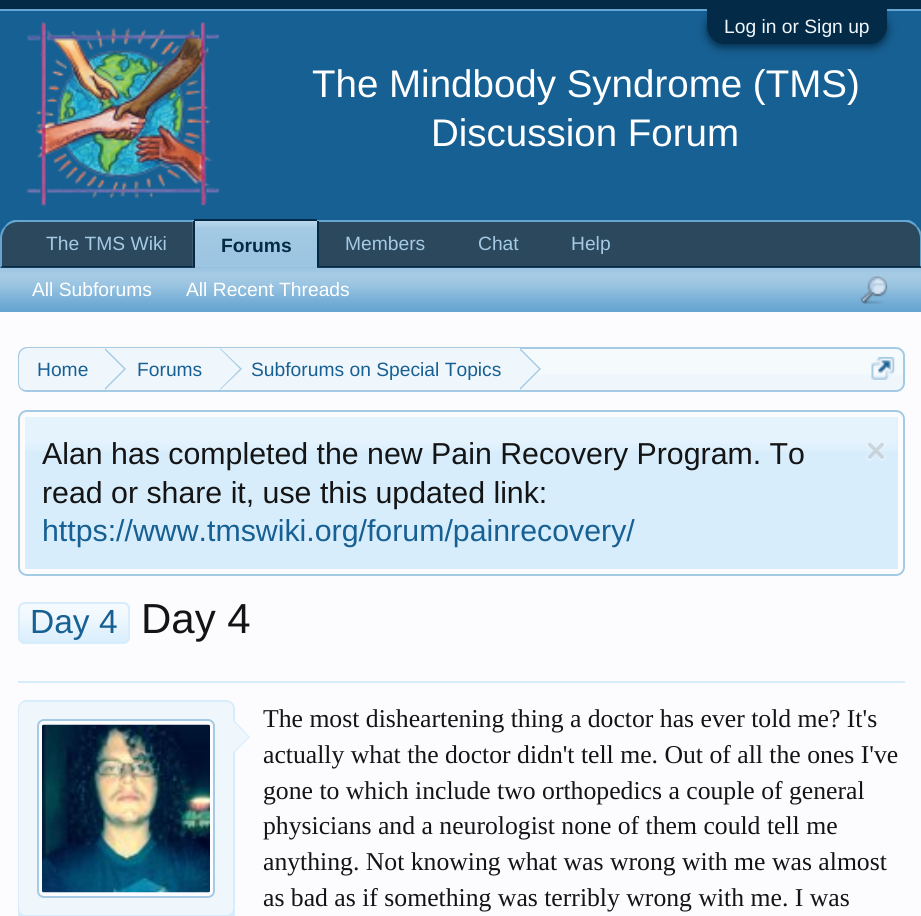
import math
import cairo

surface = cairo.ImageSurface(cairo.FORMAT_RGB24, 921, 916)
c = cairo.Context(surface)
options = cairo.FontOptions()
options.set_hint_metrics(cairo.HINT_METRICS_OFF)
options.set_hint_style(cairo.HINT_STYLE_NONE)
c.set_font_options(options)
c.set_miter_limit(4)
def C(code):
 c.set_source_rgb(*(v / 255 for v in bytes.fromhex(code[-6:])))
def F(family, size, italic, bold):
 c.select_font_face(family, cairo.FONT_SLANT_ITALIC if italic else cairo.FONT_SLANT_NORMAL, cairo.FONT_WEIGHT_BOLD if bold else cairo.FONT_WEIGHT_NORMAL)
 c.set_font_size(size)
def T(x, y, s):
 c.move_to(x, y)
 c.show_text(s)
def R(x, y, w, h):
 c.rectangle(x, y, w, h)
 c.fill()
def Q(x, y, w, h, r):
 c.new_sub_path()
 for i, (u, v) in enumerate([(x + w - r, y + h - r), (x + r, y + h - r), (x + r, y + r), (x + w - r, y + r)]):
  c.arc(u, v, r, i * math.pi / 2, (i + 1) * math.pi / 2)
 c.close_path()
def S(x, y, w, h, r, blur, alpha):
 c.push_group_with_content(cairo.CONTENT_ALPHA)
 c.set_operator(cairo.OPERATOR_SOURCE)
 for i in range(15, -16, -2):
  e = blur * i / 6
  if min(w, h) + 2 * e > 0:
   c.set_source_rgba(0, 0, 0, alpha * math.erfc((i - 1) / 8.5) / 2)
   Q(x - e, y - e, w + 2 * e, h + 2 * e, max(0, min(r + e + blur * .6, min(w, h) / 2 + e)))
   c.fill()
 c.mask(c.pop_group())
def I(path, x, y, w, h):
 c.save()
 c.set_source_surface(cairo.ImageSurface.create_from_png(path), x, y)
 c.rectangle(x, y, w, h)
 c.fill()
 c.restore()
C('176093')
c.paint()
C('032a46')
R(0,0,921,9)
C('65a5d1')
R(0,9,921,2)
C('032a46')
S(707,12,180,35,17.5,4.5,1)
C('032a46')
c.new_path()
c.move_to(707,9)
c.line_to(887,9)
c.line_to(887,26.5)
c.curve_to(887,36,879,44,869.5,44)
c.line_to(724.5,44)
c.curve_to(715,44,707,36,707,26.5)
c.close_path()
c.fill()
F('Liberation Sans',19.25,0,0)
C('f0f7fc')
T(724,33,'Log in or Sign up')
I('1.png',26,22,194,185)
F('Liberation Sans',38.5,0,0)
C('ffffff')
T(312,97,'The Mindbody Syndrome (TMS)')
T(431,146,'Discussion Forum')
C('2b485c')
c.new_path()
c.move_to(18,221)
c.line_to(904,221)
c.curve_to(914,221,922,229,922,239)
c.line_to(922,268)
c.line_to(0,268)
c.line_to(0,239)
c.curve_to(0,229,8,221,18,221)
c.close_path()
c.fill()
C('65a5d1')
c.new_path()
c.move_to(18,222)
c.curve_to(13,222,9,224,6,227)
c.line_to(5,226)
c.curve_to(7,223,10,221,14,220)
c.line_to(909,220)
c.curve_to(912,221,915,223,917,226)
c.line_to(916,227)
c.curve_to(913,224,909,222,905,222)
c.close_path()
c.fill()
c.new_path()
c.move_to(917,226)
c.curve_to(920,229,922,233,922,238)
c.line_to(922,268)
c.line_to(920,266)
c.line_to(920,238)
c.curve_to(920,234,918,230,916,227)
c.close_path()
c.fill()
C('032a46')
c.new_path()
c.move_to(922,268)
c.line_to(0,268)
c.line_to(2,266)
c.line_to(920,266)
c.close_path()
c.fill()
C('65a5d1')
c.new_path()
c.move_to(0,268)
c.line_to(2,266)
c.line_to(2,238)
c.curve_to(2,234,4,230,6,227)
c.line_to(5,226)
c.curve_to(2,229,0,233,0,238)
c.close_path()
c.fill()
F('Liberation Sans',19.25,0,0)
C('a5cae4')
T(46,250,'The TMS Wiki')
T(345,250,'Members')
T(478,250,'Chat')
T(571,250,'Help')
C('65a5d1')
c.new_path()
c.move_to(197,219)
c.line_to(315,219)
c.curve_to(317,219,319,221,319,223)
c.line_to(319,268)
c.line_to(193,268)
c.line_to(193,223)
c.curve_to(193,221,195,219,197,219)
c.close_path()
c.fill()
I('2.png',192,220,127,48)
C('032a46')
R(194,219,123,2)
R(317,221,2,47)
R(193,221,2,47)
F('Liberation Sans',19.25,0,1)
T(221,252,'Forums')
C('65a5d1')
R(0,268,921,44)
I('3.png',0,267,921,42)
F('Liberation Sans',19.25,0,0)
C('ffffff')
T(32,296,'All Subforums')
T(186,296,'All Recent Threads')
I('4.png',860,276,28,28)
C('fcfcff')
R(0,312,921,604)
C('f0f7fc')
Q(18,347,887,45,9)
c.fill()
I('5.png',18,349,886,26)
Q(19,348,885,43,8)
C('a5cae4')
c.stroke()
c.save()
Q(19,348,884,42,7)
c.clip()
C('f0f7fc')
c.new_path()
c.move_to(28,348)
c.line_to(105,348)
c.line_to(105,392)
c.line_to(28,392)
c.curve_to(23,392,19,388,19,383)
c.line_to(19,357)
c.curve_to(19,352,23,348,28,348)
c.close_path()
c.fill()
c.restore()
C('176093')
T(37,376,'Home')
C('f0f7fc')
R(105,348,415,27)
C('a5cae4')
c.new_path()
c.move_to(105,390)
c.line_to(105,348)
c.line_to(126,369)
c.close_path()
c.fill()
C('f0f7fc')
c.new_path()
c.move_to(103,390)
c.line_to(103,348)
c.line_to(124,369)
c.close_path()
c.fill()
C('176093')
T(137,376,'Forums')
C('a5cae4')
c.new_path()
c.move_to(220,390)
c.line_to(220,348)
c.line_to(242,369)
c.close_path()
c.fill()
C('f0f7fc')
c.new_path()
c.move_to(219,390)
c.line_to(219,348)
c.line_to(240,369)
c.close_path()
c.fill()
C('176093')
T(251,376,'Subforums on Special Topics')
C('a5cae4')
c.new_path()
c.move_to(520,390)
c.line_to(520,348)
c.line_to(541,369)
c.close_path()
c.fill()
C('f0f7fc')
c.new_path()
c.move_to(518,390)
c.line_to(518,348)
c.line_to(539,369)
c.close_path()
c.fill()
I('6.png',871,357,24,23)
Q(19,411,885,164,8)
C('a5cae4')
c.stroke()
C('d7edfc')
R(25,417,873,152)
I('7.png',25,417,873,34)
F('Liberation Sans',30.3,0,0)
C('141414')
T(42,464,'Alan has completed the new Pain Recovery Program. To')
T(42,503,'read or share it, use this updated link:')
C('176093')
T(42,541,'https://www.tmswiki.org/forum/painrecovery/')
I('8.png',866,441,20,20)
C('d7edfc')
Q(18,602,112,42,7)
c.fill()
I('9.png',18,603,112,38)
Q(19,603,110,40,6)
c.stroke()
F('Liberation Sans',33.5,0,0)
C('176093')
T(30,633,'Day 4')
F('Liberation Sans',42,0,0)
C('141414')
T(141,633,'Day 4')
C('d7edfc')
R(18,681,887,2)
Q(19,701,215,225,8)
c.fill_preserve()
c.stroke()
C('f0f7fc')
Q(19,702,214,213,7)
c.fill()
C('fcfcff')
Q(38,720,176,177,6)
c.fill_preserve()
C('a5cae4')
c.stroke()
I('10.png',42,724,168,169)
C('d7edfc')
c.new_path()
c.move_to(233,754)
c.line_to(233,719)
c.line_to(250,737)
c.close_path()
c.fill()
C('f0f7fc')
c.new_path()
c.move_to(231,754)
c.line_to(231,719)
c.line_to(248.5,737)
c.close_path()
c.fill()
F('Liberation Serif',25.7,0,0)
C('141414')
T(263,727,'The most disheartening thing a doctor has ever told me? It\'s')
T(263,763,'actually what the doctor didn\'t tell me. Out of all the ones I\'ve')
T(263,799,'gone to which include two orthopedics a couple of general')
T(263,834,'physicians and a neurologist none of them could tell me')
T(263,870,'anything. Not knowing what was wrong with me was almost')
T(263,906,'as bad as if something was terribly wrong with me. I was')
surface.write_to_png('o.png')
